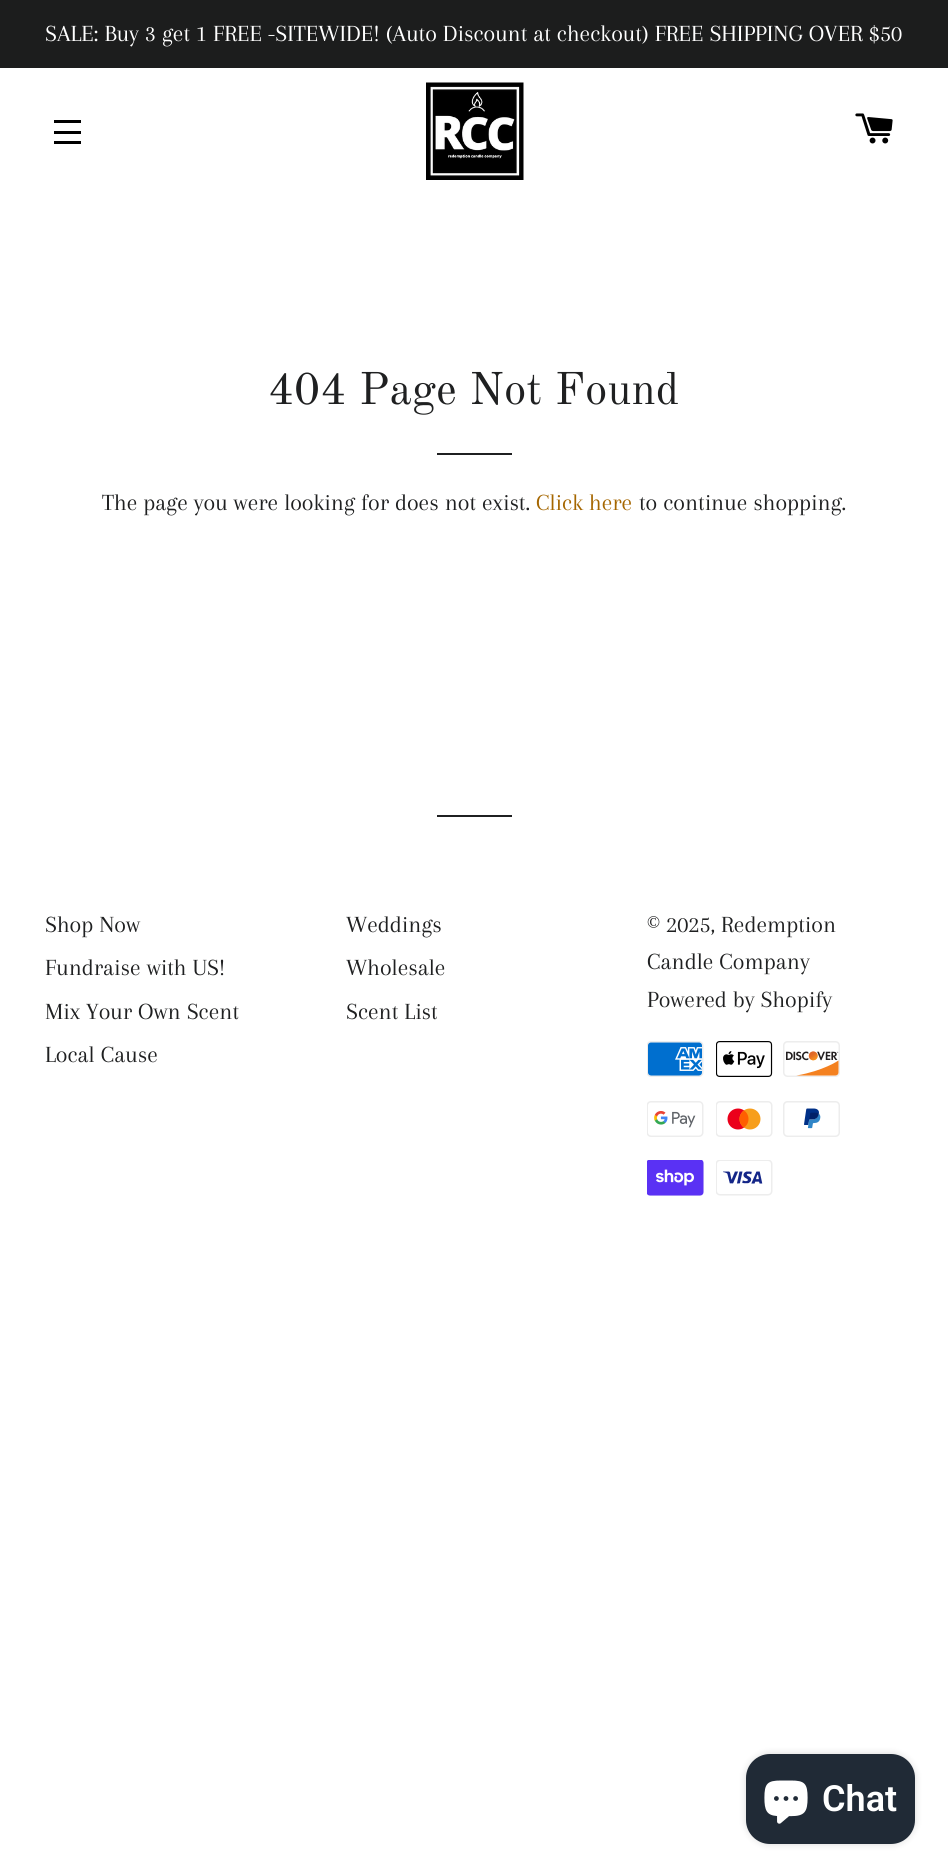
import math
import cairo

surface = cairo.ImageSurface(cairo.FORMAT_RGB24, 948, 1875)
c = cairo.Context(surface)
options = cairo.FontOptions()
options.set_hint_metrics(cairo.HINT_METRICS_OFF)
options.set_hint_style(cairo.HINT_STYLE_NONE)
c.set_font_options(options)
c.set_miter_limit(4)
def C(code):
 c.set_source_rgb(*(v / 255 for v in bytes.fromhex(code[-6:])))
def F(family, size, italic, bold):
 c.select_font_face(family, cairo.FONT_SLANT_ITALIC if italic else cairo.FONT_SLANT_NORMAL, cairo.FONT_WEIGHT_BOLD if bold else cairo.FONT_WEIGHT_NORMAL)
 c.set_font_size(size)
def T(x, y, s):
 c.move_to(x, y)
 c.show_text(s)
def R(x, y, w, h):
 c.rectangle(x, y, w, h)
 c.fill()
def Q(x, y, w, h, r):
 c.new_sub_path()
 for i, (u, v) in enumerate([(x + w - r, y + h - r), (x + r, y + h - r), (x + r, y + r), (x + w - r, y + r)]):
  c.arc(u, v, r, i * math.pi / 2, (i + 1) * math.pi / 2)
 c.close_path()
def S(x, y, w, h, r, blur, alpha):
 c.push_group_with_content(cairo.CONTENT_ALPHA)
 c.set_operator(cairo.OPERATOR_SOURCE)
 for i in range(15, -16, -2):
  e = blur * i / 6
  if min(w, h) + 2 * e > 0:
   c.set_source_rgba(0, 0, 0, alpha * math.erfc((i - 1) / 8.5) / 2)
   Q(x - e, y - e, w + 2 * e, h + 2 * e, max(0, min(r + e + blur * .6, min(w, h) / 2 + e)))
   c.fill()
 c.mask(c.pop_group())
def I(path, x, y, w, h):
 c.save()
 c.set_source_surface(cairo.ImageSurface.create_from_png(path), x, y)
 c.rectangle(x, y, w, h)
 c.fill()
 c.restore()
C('ffffff')
c.paint()
C('1c1d1d')
R(0,0,948,68)
F('Arapey',24,0,0)
C('ffffff')
T(45,41,'SALE: Buy 3 get 1 FREE -SITEWIDE! (Auto Discount at checkout) FREE SHIPPING OVER $50')
C('000000')
R(54,120,27,3)
R(54,131,27,3)
R(54,141,27,3)
I('1.png',426,82,98,98)
I('2.png',855,113,38,31)
F('Old Standard TT',45,0,0)
C('1f2021')
T(268,404,'404 Page Not Found')
R(437,453,75,2)
F('Arapey',24,0,0)
T(102,510,'The page you were looking for does not exist.')
C('a56600')
T(536,510,'Click here')
C('1f2021')
T(639,510,'to continue shopping.')
R(437,815,75,2)
T(45,932,'Shop Now')
T(45,975,'Fundraise with US!')
T(45,1019,'Mix Your Own Scent')
T(45,1062,'Local Cause')
T(346,932,'Weddings')
T(346,975,'Wholesale')
T(346,1019,'Scent List')
T(647,932,'© 2025, Redemption')
T(647,969,'Candle Company')
T(647,1007,'Powered by Shopify')
I('3.png',647,1041,57,36)
I('4.png',716,1041,57,36)
I('5.png',783,1041,57,36)
I('6.png',647,1101,57,36)
I('7.png',716,1101,57,36)
I('8.png',783,1101,57,36)
I('9.png',647,1160,57,36)
I('10.png',716,1160,57,36)
C('000000')
S(746,1754,169,90,24,4,.15)
C('202a36')
Q(746,1754,169,90,24)
c.fill()
I('11.png',764,1780,44,44)
F('Roboto SemiBold',36,0,0)
C('ffffff')
T(822,1811,'Chat')
surface.write_to_png('o.png')
